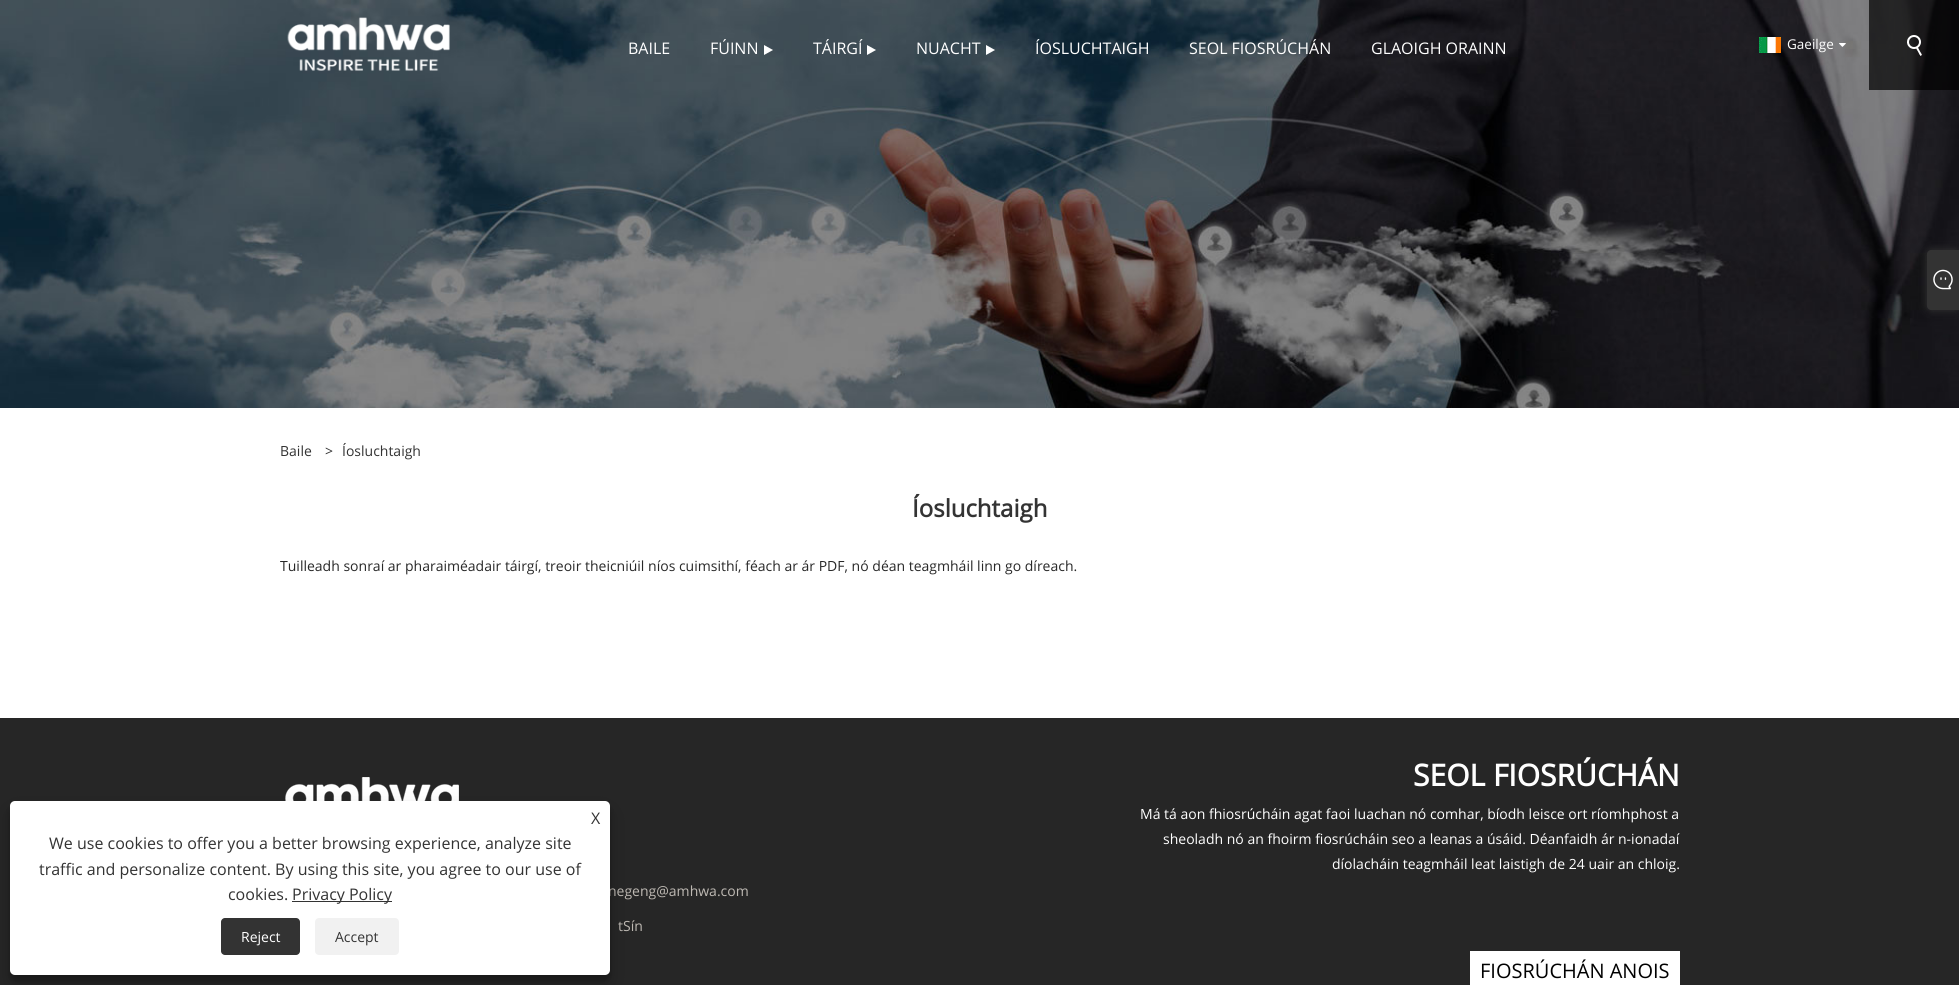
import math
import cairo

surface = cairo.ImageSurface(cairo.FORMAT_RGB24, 1959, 985)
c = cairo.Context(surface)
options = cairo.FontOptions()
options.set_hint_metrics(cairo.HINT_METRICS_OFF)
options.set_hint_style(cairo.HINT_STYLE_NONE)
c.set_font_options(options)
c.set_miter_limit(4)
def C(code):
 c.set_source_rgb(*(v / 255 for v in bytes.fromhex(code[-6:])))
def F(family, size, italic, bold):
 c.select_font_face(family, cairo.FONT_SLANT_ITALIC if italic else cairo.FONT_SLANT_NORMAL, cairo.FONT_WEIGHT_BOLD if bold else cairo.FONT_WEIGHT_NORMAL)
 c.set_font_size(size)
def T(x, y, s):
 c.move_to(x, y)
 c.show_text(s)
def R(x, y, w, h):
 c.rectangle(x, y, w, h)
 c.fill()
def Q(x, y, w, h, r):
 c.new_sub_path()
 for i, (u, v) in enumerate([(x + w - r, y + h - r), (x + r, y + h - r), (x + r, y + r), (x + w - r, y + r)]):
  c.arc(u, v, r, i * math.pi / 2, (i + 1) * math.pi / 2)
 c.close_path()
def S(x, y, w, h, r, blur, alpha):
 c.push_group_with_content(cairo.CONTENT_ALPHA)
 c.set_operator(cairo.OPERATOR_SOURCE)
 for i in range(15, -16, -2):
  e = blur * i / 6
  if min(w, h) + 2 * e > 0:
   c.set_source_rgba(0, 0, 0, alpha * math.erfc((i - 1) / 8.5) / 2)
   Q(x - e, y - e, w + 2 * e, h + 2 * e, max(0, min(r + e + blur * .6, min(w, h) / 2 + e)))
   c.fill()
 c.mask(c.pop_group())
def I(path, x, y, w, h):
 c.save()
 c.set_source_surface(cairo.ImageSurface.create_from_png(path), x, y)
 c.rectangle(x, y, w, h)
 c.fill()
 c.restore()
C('ffffff')
c.paint()
I('1.png',0,0,1959,408)
I('2.png',287,17,163,54)
F('Open Sans',16,0,0)
C('ffffff')
T(628,54,'BAILE')
T(710,54,'FÚINN')
c.new_path()
c.move_to(764,55)
c.line_to(764,45)
c.line_to(773,50)
c.close_path()
c.fill()
T(813,54,'TÁIRGÍ')
c.new_path()
c.move_to(867,55)
c.line_to(867,45)
c.line_to(876,50)
c.close_path()
c.fill()
T(916,54,'NUACHT')
c.new_path()
c.move_to(986,55)
c.line_to(986,45)
c.line_to(995,50)
c.close_path()
c.fill()
T(1035,54,'ÍOSLUCHTAIGH')
T(1189,54,'SEOL FIOSRÚCHÁN')
T(1371,54,'GLAOIGH ORAINN')
I('3.png',1759,37,22,16)
F('Open Sans',13.5,0,0)
T(1787,49,'Gaeilge')
I('4.png',1839,43,7,4)
c.set_source_rgba(0,0,0,0.7)
R(1869,0,90,90)
I('5.png',1907,35,15,21)
F('Open Sans',14,0,0)
C('333333')
T(280,456,'Baile')
T(325,456,'>')
T(342,456,'Íosluchtaigh')
F('Open Sans',24,0,1)
T(912,517,'Íosluchtaigh')
F('Open Sans',14,0,0)
C('282828')
T(280,571,'Tuilleadh sonraí ar pharaiméadair táirgí, treoir theicniúil níos cuimsithí, féach ar ár PDF, nó déan teagmháil linn go díreach.')
C('262626')
R(0,718,1959,267)
I('6.png',285,777,174,24)
C('beb9b3')
T(608,896,'negeng@amhwa.com')
T(618,931,'tSín')
F('Open Sans',30,0,1)
C('ffffff')
T(1413,786,'SEOL FIOSRÚCHÁN')
F('Open Sans',14,0,0)
T(1140,819,'Má tá aon fhiosrúcháin agat faoi luachan nó comhar, bíodh leisce ort ríomhphost a')
T(1163,844,'sheoladh nó an fhoirm fiosrúcháin seo a leanas a úsáid. Déanfaidh ár n-ionadaí')
T(1332,869,'díolacháin teagmháil leat laistigh de 24 uair an chloig.')
R(1470,951,210,34)
F('Open Sans',20,0,0)
C('000000')
T(1480,978,'FIOSRÚCHÁN ANOIS')
C('333333')
S(1927,250,32,60,4,4,1)
C('333333')
c.new_path()
c.move_to(1931,250)
c.line_to(1959,250)
c.line_to(1959,310)
c.line_to(1931,310)
c.curve_to(1929,310,1927,308,1927,306)
c.line_to(1927,254)
c.curve_to(1927,252,1929,250,1931,250)
c.close_path()
c.fill()
I('7.png',1933,269,20,21)
C('000000')
S(10,807,600,174,5,3,.23)
S(10,811,600,174,5,10,.19)
C('ffffff')
Q(10,801,600,174,5)
c.fill()
F('Open Sans',16,0,0)
C('333333')
T(591,824,'X')
T(49,849,'We use cookies to offer you a better browsing experience, analyze site')
T(39,875,'traffic and personalize content. By using this site, you agree to our use of')
T(228,900,'cookies.')
R(292,901,100,1)
T(292,900,'Privacy Policy')
Q(221,918,79,37,4)
c.fill()
F('Open Sans',14,0,0)
C('ffffff')
T(241,942,'Reject')
C('f1f1f1')
Q(315,918,84,37,4)
c.fill()
C('333333')
T(335,942,'Accept')
surface.write_to_png('o.png')
